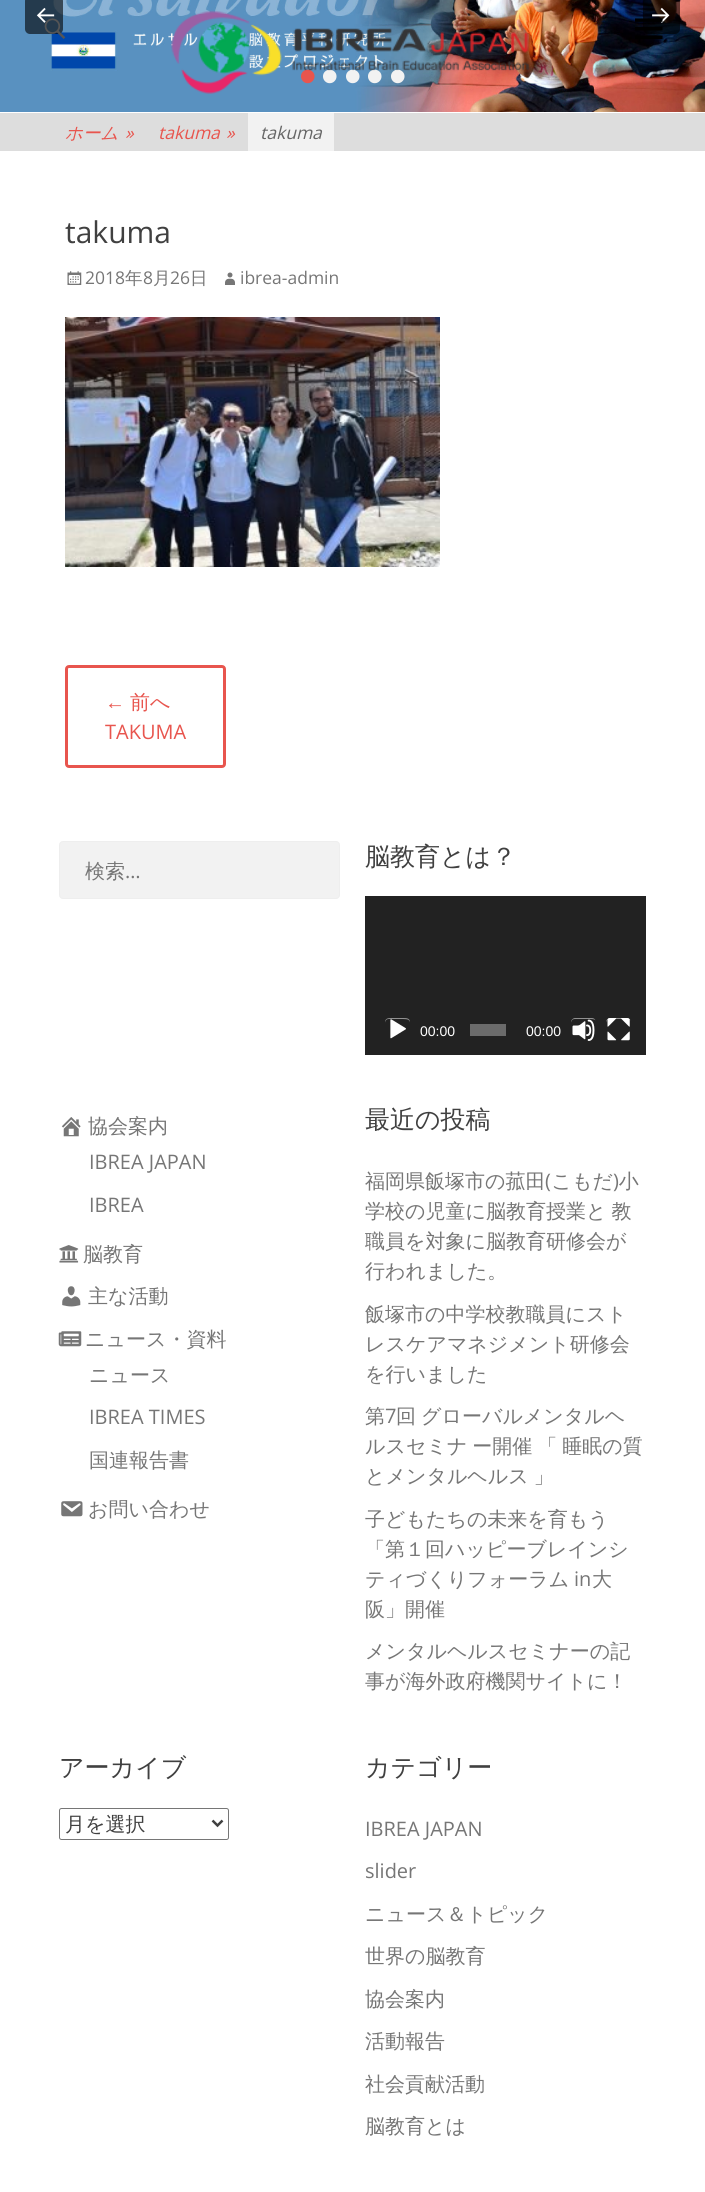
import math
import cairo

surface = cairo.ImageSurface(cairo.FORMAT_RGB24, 705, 2192)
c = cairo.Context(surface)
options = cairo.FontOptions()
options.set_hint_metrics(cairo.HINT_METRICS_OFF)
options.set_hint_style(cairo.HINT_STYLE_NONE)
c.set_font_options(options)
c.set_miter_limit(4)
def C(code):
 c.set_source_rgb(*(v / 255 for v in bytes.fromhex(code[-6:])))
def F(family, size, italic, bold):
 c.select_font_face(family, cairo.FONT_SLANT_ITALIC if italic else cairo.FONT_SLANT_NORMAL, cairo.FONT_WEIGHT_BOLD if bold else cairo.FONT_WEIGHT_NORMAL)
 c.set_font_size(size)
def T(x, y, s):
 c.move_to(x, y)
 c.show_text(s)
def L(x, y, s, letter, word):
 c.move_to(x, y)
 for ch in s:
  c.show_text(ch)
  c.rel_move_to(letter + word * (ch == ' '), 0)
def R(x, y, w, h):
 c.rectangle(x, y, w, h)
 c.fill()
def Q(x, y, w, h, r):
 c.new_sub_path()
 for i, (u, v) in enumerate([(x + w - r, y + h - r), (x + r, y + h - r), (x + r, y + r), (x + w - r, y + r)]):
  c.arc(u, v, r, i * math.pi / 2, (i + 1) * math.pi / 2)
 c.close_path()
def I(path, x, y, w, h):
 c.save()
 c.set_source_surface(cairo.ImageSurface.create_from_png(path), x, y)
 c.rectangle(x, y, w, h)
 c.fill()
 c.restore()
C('ffffff')
c.paint()
I('6.png',0,0,705,112)
F('Liberation Sans',50,0,0)
C('e8554e')
T(299,93,'•')
C('f2f2f2')
T(321,93,'•')
T(344,93,'•')
T(366,93,'•')
T(389,93,'•')
I('1.png',171,11,358,83)
c.set_source_rgba(0,0,0,0.6)
Q(25,-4,38,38,5)
c.fill()
I('4.png',36,7,19,16)
I('2.png',44,18,22,21)
Q(643,-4,37,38,5)
c.fill()
I('5.png',652,7,18,16)
I('3.png',635,18,28,21)
C('dddddd')
R(0,113,705,38)
F('WenQuanYi Zen Hei Medium',17.5,1,0)
C('e8554e')
T(65,139,'ホーム')
F('Open Sans',17.5,1,0)
T(125,139,'»')
T(158,139,'takuma')
T(226,139,'»')
C('f2f2f2')
R(248,113,86,38)
C('666666')
T(260,139,'takuma')
F('Open Sans',30,0,0)
C('404040')
T(65,243,'takuma')
I('7.png',67,271,15,14)
F('Open Sans',17.5,0,0)
C('767676')
T(85,284,'2018')
F('WenQuanYi Zen Hei Medium',17.5,0,0)
T(125,284,'年')
F('Open Sans',17.5,0,0)
T(143,284,'8')
F('WenQuanYi Zen Hei Medium',17.5,0,0)
T(153,284,'月')
F('Open Sans',17.5,0,0)
T(170,284,'26')
F('WenQuanYi Zen Hei Medium',17.5,0,0)
T(190,284,'日')
I('8.png',225,272,10,13)
F('Open Sans',17.5,0,0)
T(240,284,'ibrea-admin')
I('9.png',65,317,375,250)
Q(66.5,666.5,158,100,2.5)
C('e8554e')
c.set_line_width(3)
c.stroke()
F('Liberation Sans',20,0,0)
T(105,709,'←')
F('WenQuanYi Zen Hei Medium',20,0,0)
T(130,709,'前へ')
F('Open Sans',20,0,0)
T(105,739,'TAKUMA')
C('f2f2f2')
Q(59.5,841.5,280,57,3.5)
c.fill_preserve()
C('eeeeee')
c.set_line_width(1)
c.stroke()
F('WenQuanYi Zen Hei Medium',20,0,0)
C('767676')
T(85,878,'検索')
F('Open Sans',20,0,0)
T(125,878,'…')
F('WenQuanYi Zen Hei Medium',25,0,0)
C('404040')
T(365,865,'脳教育とは？')
C('222222')
R(365,896,281,159)
I('10.png',390,1019,16,20)
C('919191')
c.new_path()
c.move_to(389,1019)
c.line_to(403,1019)
c.curve_to(408,1019,409.5,1020,410,1022.5)
c.curve_to(410,1018,406.5,1018,403,1018)
c.line_to(392,1018)
c.curve_to(388.5,1018,385,1018,385,1022.5)
c.curve_to(385.5,1020.5,386.5,1019,389,1019)
c.close_path()
c.fill()
F('Liberation Sans',14,0,0)
C('ffffff')
T(420,1036,'00:00')
C('6b6b6b')
R(470,1024,36,12)
C('ffffff')
T(526,1036,'00:00')
I('11.png',572,1019,23,22)
C('919191')
c.new_path()
c.move_to(575,1019)
c.line_to(590,1019)
c.curve_to(593,1019,595,1019.5,595.5,1020.5)
c.curve_to(595,1019,593.5,1018,592,1018)
c.line_to(575,1018)
c.curve_to(573,1018,571,1020,571,1022)
c.line_to(571,1022.5)
c.curve_to(571.5,1020.5,572.5,1019,575,1019)
c.close_path()
c.fill()
I('12.png',607,1018,23,23)
c.set_source_rgba(1,1,1,0.5)
c.new_path()
c.move_to(610,1019)
c.line_to(625,1019)
c.curve_to(628,1019,630,1019.5,630.5,1020.5)
c.curve_to(630,1019,628.5,1018,627,1018)
c.line_to(610,1018)
c.curve_to(608,1018,606,1020,606,1022)
c.line_to(606,1022.5)
c.curve_to(606.5,1020.5,607.5,1019,610,1019)
c.close_path()
c.fill()
I('13.png',61,1117,20,20)
F('WenQuanYi Zen Hei Medium',20,0,0)
C('767676')
T(88,1133,'協会案内')
F('Open Sans',20,0,0)
T(89,1169,'IBREA JAPAN')
T(89,1212,'IBREA')
I('14.png',59,1245,20,18)
F('WenQuanYi Zen Hei Medium',20,0,0)
T(83,1261,'脳教育')
I('15.png',62,1286,19,21)
T(88,1303,'主な活動')
I('16.png',58,1331,24,16)
T(85,1346,'ニュース・資料')
T(89,1382,'ニュース')
F('Open Sans',20,0,0)
T(89,1424,'IBREA TIMES')
F('WenQuanYi Zen Hei Medium',20,0,0)
T(89,1467,'国連報告書')
I('17.png',61,1501,22,16)
T(88,1516,'お問い合わせ')
F('WenQuanYi Zen Hei Medium',25,0,0)
C('404040')
T(365,1128,'最近の投稿')
F('WenQuanYi Zen Hei Medium',20,0,0)
C('767676')
T(365,1188,'福岡県飯塚市の菰田 こもだ 小')
F('Open Sans',20,0,0)
T(545,1188,'(')
T(613,1188,')')
F('WenQuanYi Zen Hei Medium',20,0,0)
L(365,1218,'学校の児童に脳教育授業と 教',0,-1)
T(365,1248,'職員を対象に脳教育研修会が')
T(365,1278,'行われました。')
T(365,1321,'飯塚市の中学校教職員にスト')
T(365,1351,'レスケアマネジメント研修会')
T(365,1381,'を行いました')
T(365,1423,'第')
F('Open Sans',20,0,0)
T(385,1423,'7')
F('WenQuanYi Zen Hei Medium',20,0,0)
L(396,1423,'回 グローバルメンタルヘ',0,-1)
L(365,1453,'ルスセミナ ー開催 「 睡眠の質',0,-1)
L(365,1483,'とメンタルヘルス 」',0,-1)
T(365,1526,'子どもたちの未来を育もう')
T(365,1556,'「第１回ハッピーブレインシ')
T(365,1586,'ティづくりフォーラム')
F('Open Sans',20,0,0)
T(574,1586,'in')
F('WenQuanYi Zen Hei Medium',20,0,0)
T(592,1586,'大')
T(365,1616,'阪」開催')
T(365,1658,'メンタルヘルスセミナーの記')
T(365,1688,'事が海外政府機関サイトに！')
F('WenQuanYi Zen Hei Medium',25,0,0)
C('404040')
T(59,1776,'アーカイブ')
Q(59.5,1808.5,169,31,2)
C('767676')
c.stroke()
c.new_path()
c.move_to(212.5,1820.5)
c.line_to(217.5,1825.5)
c.line_to(222.5,1820.5)
C('404040')
c.set_line_width(2.5)
c.stroke()
F('WenQuanYi Zen Hei Medium',20,0,0)
T(65,1831,'月を選択')
F('WenQuanYi Zen Hei Medium',25,0,0)
T(365,1776,'カテゴリー')
F('Open Sans',20,0,0)
C('767676')
T(365,1836,'IBREA JAPAN')
T(365,1878,'slider')
F('WenQuanYi Zen Hei Medium',20,0,0)
T(365,1921,'ニュース＆トピック')
T(365,1963,'世界の脳教育')
T(365,2006,'協会案内')
T(365,2048,'活動報告')
T(365,2091,'社会貢献活動')
T(365,2133,'脳教育とは')
surface.write_to_png('o.png')
